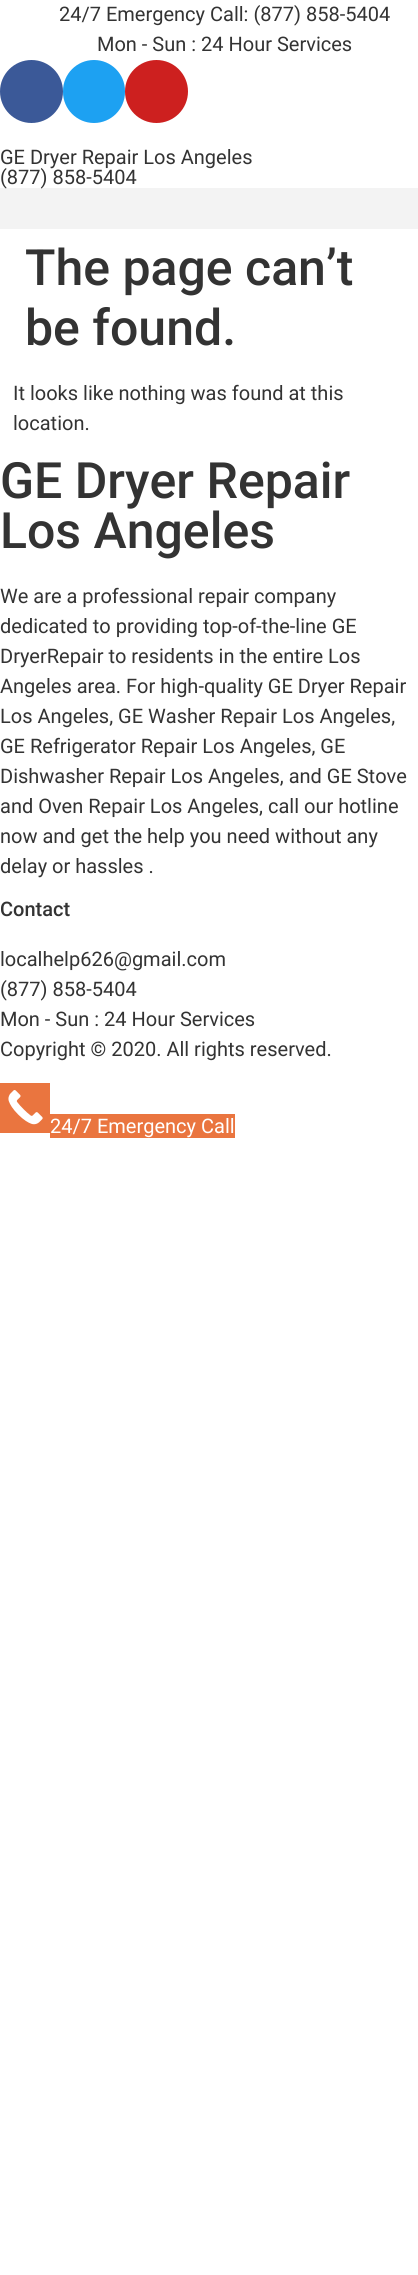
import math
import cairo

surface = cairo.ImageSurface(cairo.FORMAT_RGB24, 418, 2275)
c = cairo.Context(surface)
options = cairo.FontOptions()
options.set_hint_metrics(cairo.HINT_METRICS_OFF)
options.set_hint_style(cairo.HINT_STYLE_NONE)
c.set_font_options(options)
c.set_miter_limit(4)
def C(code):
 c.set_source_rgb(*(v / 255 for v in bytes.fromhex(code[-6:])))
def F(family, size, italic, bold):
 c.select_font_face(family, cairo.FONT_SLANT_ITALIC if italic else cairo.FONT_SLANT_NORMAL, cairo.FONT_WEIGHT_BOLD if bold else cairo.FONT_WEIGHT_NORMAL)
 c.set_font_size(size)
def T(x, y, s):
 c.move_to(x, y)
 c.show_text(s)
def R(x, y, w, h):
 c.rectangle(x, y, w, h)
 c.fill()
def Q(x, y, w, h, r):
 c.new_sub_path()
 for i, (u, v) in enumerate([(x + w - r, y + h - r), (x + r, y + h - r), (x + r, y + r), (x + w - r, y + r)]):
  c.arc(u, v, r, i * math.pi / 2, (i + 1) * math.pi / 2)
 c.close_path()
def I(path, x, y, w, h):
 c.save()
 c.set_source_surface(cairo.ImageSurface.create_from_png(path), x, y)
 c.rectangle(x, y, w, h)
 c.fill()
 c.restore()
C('ffffff')
c.paint()
F('Roboto',20,0,0)
C('333333')
T(59,21,'24/7 Emergency Call: (877) 858-5404')
T(97,51,'Mon - Sun : 24 Hour Services')
C('3b5998')
c.new_path()
c.arc(31.5,91.5,31.5,0,2 * math.pi)
c.fill()
C('1da1f2')
Q(63,60,62,63,31)
c.fill()
C('cd201f')
c.arc(156.5,91.5,31.5,0,2 * math.pi)
c.fill()
C('333333')
T(0,164,'GE Dryer Repair Los Angeles')
T(0,184,'(877) 858-5404')
c.set_source_rgba(0,0,0,0.05)
R(0,188,418,41)
F('Roboto Medium',50,0,0)
C('333333')
T(25,285,'The page can’t')
T(25,345,'be found.')
F('Roboto',20,0,0)
T(13,400,'It looks like nothing was found at this')
T(13,430,'location.')
F('Roboto Medium',50,0,0)
T(0,498,'GE Dryer Repair')
T(0,548,'Los Angeles')
F('Roboto',20,0,0)
T(0,603,'We are a professional repair company')
T(0,633,'dedicated to providing top-of-the-line GE')
T(0,663,'DryerRepair to residents in the entire Los')
T(0,693,'Angeles area. For high-quality GE Dryer Repair')
T(0,723,'Los Angeles, GE Washer Repair Los Angeles,')
T(0,753,'GE Refrigerator Repair Los Angeles, GE')
T(0,783,'Dishwasher Repair Los Angeles, and GE Stove')
T(0,813,'and Oven Repair Los Angeles, call our hotline')
T(0,843,'now and get the help you need without any')
T(0,873,'delay or hassles .')
F('Roboto Medium',20,0,0)
T(0,916,'Contact')
F('Roboto',20,0,0)
T(0,966,'localhelp626@gmail.com')
T(0,996,'(877) 858-5404')
T(0,1026,'Mon - Sun : 24 Hour Services')
T(0,1056,'Copyright © 2020. All rights reserved.')
C('ea753f')
R(0,1083,50,50)
I('1.png',8,1090,35,35)
R(50,1114,185,24)
C('ffffff')
T(50,1133,'24/7 Emergency Call')
surface.write_to_png('o.png')
